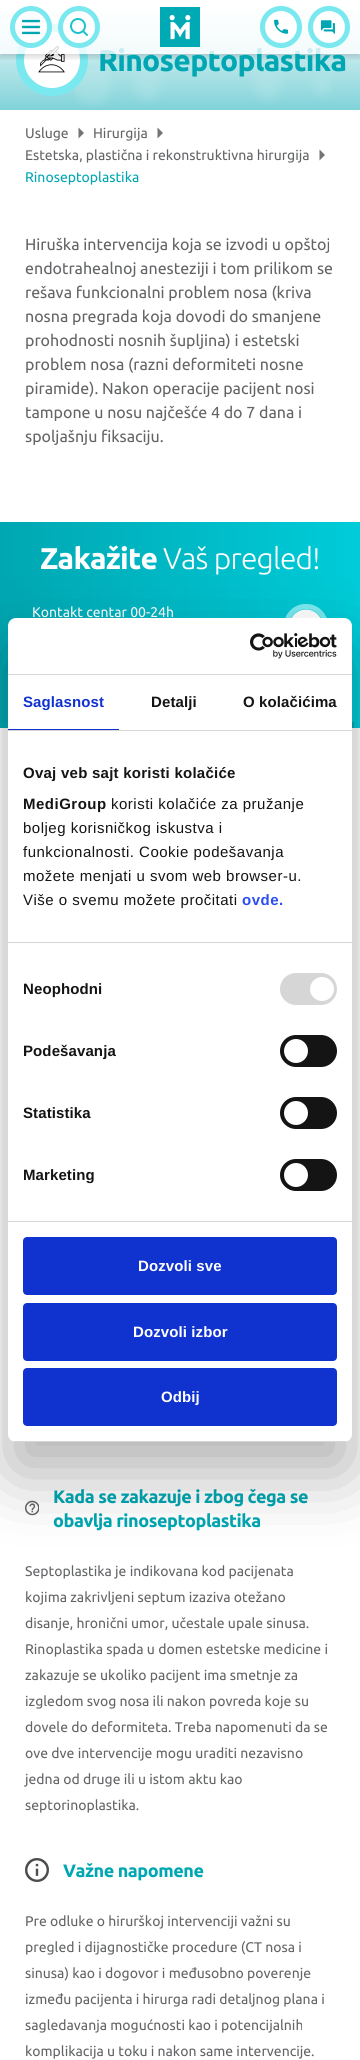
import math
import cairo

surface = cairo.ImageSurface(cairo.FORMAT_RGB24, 360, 2060)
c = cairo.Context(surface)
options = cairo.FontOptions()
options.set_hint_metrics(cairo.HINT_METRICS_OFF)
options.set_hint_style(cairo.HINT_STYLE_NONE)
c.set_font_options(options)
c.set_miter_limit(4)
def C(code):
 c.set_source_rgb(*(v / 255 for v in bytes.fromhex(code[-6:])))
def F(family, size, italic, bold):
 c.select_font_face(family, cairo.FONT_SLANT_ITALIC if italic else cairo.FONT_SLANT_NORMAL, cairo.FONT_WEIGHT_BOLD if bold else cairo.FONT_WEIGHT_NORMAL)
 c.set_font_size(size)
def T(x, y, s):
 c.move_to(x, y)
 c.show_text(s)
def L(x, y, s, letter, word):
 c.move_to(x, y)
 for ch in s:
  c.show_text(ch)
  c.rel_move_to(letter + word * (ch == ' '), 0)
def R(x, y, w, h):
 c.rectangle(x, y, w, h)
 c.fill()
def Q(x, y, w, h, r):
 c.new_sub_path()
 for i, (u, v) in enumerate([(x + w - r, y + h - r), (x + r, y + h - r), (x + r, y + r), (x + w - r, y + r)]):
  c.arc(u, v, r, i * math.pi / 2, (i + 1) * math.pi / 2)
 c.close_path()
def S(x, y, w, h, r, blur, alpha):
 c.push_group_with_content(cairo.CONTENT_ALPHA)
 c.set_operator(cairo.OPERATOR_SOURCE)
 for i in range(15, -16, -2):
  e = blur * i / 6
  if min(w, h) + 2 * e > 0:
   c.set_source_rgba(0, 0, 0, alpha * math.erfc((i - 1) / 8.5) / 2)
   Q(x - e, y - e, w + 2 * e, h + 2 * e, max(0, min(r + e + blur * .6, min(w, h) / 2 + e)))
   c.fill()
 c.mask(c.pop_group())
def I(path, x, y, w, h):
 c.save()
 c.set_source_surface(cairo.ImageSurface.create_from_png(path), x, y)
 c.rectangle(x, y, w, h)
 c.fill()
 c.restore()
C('ffffff')
c.paint()
gradient = cairo.LinearGradient(180,4,180,110)
gradient.add_color_stop_rgba(0,1,1,1,1)
gradient.add_color_stop_rgba(1,0.502,0.827,0.851,1)
c.set_source(gradient)
R(0,6,360,104)
I('7.png',73,69,259,38)
C('ffffff')
c.arc(52,60,32,0,2 * math.pi)
c.fill_preserve()
C('7ae8ef')
c.set_line_width(8)
c.stroke()
I('6.png',38,46,27,27)
c.save()
c.rectangle(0,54,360,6)
c.clip()
C('000000')
S(0,3,360,54,0,3,.16)
c.restore()
F('Ubuntu',30,0,1)
C('00a7b2')
L(98,71,'Rinoseptoplastika',-.75,0)
c.set_source_rgba(1,1,1,0.8)
R(0,7,360,47)
C('ffffff')
c.new_path()
c.arc(31,27,18.5,0,2 * math.pi)
c.fill_preserve()
C('7ae8ef')
c.set_line_width(5)
c.stroke()
I('1.png',22,19,18,16)
C('ffffff')
c.arc(79,27,18.5,0,2 * math.pi)
c.fill_preserve()
C('7ae8ef')
c.stroke()
I('2.png',70,18,18,18)
I('3.png',160,7,40,40)
I('4.png',260,6,42,42)
I('5.png',308,6,42,42)
F('Ubuntu',14,0,0)
C('636466')
T(25,138,'Usluge')
C('737476')
c.new_path()
c.move_to(78.5,138.5)
c.line_to(78.5,127.5)
c.line_to(84,133)
c.close_path()
c.fill()
C('636466')
T(93,138,'Hirurgija')
C('737476')
c.new_path()
c.move_to(157.5,138.5)
c.line_to(157.5,127.5)
c.line_to(163,133)
c.close_path()
c.fill()
C('636466')
T(25,160,'Estetska, plastična i rekonstruktivna hirurgija')
C('737476')
c.new_path()
c.move_to(319.5,160.5)
c.line_to(319.5,149.5)
c.line_to(325,155)
c.close_path()
c.fill()
C('00a7b2')
T(25,182,'Rinoseptoplastika')
F('Ubuntu',16,0,0)
C('636466')
T(25,250,'Hiruška intervencija koja se izvodi u opštoj')
T(25,274,'endotrahealnoj anesteziji i tom prilikom se')
T(25,298,'rešava funkcionalni problem nosa (kriva')
T(25,322,'nosna pregrada koja dovodi do smanjene')
T(25,346,'prohodnosti nosnih šupljina) i estetski')
T(25,370,'problem nosa (razni deformiteti nosne')
T(25,394,'piramide). Nakon operacije pacijent nosi')
T(25,418,'tampone u nosu najčešće 4 do 7 dana i')
T(25,442,'spoljašnju fiksaciju.')
gradient = cairo.LinearGradient(0,625,360,625)
gradient.add_color_stop_rgba(0,0,0.655,0.698,1)
gradient.add_color_stop_rgba(1,0,0.8,0.851,1)
c.set_source(gradient)
R(0,522,360,206)
F('Ubuntu',30,0,1)
C('ffffff')
L(40,569,'Zakažite',-.75,0)
F('Ubuntu Light',30,0,0)
L(163,569,'Vaš pregled!',-.75,0)
F('Ubuntu',14,0,0)
T(32,617,'Kontakt centar 00-24h')
I('8.png',285,604,42,14)
C('00aab5')
R(0,722,8,6)
R(352,722,2,6)
I('9.png',25,1500,14,16)
F('Ubuntu',18,0,1)
C('00a7b2')
L(53,1503,'Kada se zakazuje i zbog čega se',-.45,0)
L(53,1527,'obavlja rinoseptoplastika',-.45,0)
F('Ubuntu',14,0,0)
C('636466')
T(25,1576,'Septoplastika je indikovana kod pacijenata')
T(25,1602,'kojima zakrivljeni septum izaziva otežano')
T(25,1628,'disanje, hronični umor, učestale upale sinusa.')
T(25,1654,'Rinoplastika spada u domen estetske medicine i')
T(25,1680,'zakazuje se ukoliko pacijent ima smetnje za')
T(25,1706,'izgledom svog nosa ili nakon povreda koje su')
T(25,1732,'dovele do deformiteta. Treba napomenuti da se')
T(25,1758,'ove dve intervencije mogu uraditi nezavisno')
T(25,1784,'jedna od druge ili u istom aktu kao')
T(25,1810,'septorinoplastika.')
I('10.png',25,1858,24,24)
F('Ubuntu',18,0,1)
C('00a7b2')
L(63,1877,'Važne napomene',-.45,0)
F('Ubuntu',14,0,0)
C('636466')
T(25,1926,'Pre odluke o hirurškoj intervenciji važni su')
T(25,1952,'pregled i dijagnostičke procedure (CT nosa i')
T(25,1978,'sinusa) kao i dogovor i međusobno poverenje')
T(25,2004,'između pacijenta i hirurga radi detaljnog plana i')
T(25,2030,'sagledavanja mogućnosti kao i potencijalnih')
T(25,2056,'komplikacija u toku i nakon same intervencije.')
C('000000')
S(8,650,344,824,8,34,.3)
C('ffffff')
Q(8,618,344,824,8)
c.fill()
C('d6d6d6')
R(8,674,344,1)
I('11.png',250,633,87,26)
R(8,730,344,1)
C('1032cf')
R(8,729,111,1)
F('Liberation Sans',15,0,1)
L(23,707,'Saglasnost',.1,0)
C('141414')
L(151,707,'Detalji',.1,0)
L(243,707,'O kolačićima',.1,0)
C('d6d6d6')
R(8,942,344,1)
C('141414')
L(23,778,'Ovaj veb sajt koristi kolačiće',.25,0)
L(23,809,'MediGroup',.5,0)
F('Liberation Sans',15,0,0)
L(111,809,'koristi kolačiće za pružanje',.5,0)
L(23,833,'boljeg korisničkog iskustva i',.5,0)
L(23,857,'funkcionalnosti. Cookie podešavanja',.5,0)
L(23,881,'možete menjati u svom web browser-u.',.5,0)
L(23,905,'Više o svemu možete pročitati',.5,0)
F('Liberation Sans',15,0,1)
C('2a4eef')
L(242,905,'ovde.',.5,0)
C('d6d6d6')
R(8,1221,344,1)
C('141414')
L(23,994,'Neophodni',.1,0)
C('d6d6d6')
Q(280,973,57,32,16)
c.fill()
C('ffffff')
c.arc(322,989,12,0,2 * math.pi)
c.fill()
C('141414')
L(23,1056,'Podešavanja',.1,0)
Q(280,1035,57,32,16)
c.fill()
C('ffffff')
c.arc(296,1051,12,0,2 * math.pi)
c.fill()
C('141414')
L(23,1118,'Statistika',.1,0)
Q(280,1097,57,32,16)
c.fill()
C('ffffff')
c.arc(296,1113,12,0,2 * math.pi)
c.fill()
C('141414')
L(23,1180,'Marketing',.1,0)
Q(280,1159,57,32,16)
c.fill()
C('ffffff')
c.arc(296,1175,12,0,2 * math.pi)
c.fill()
c.save()
Q(8,618,344,824,8)
c.clip()
C('d6d6d6')
R(8,1441,344,1)
c.restore()
C('1032cf')
Q(24,1238,312,56,3)
c.fill_preserve()
c.set_line_width(2)
c.stroke()
C('ffffff')
L(138,1271,'Dozvoli sve',.1,0)
C('1032cf')
Q(24,1304,312,56,3)
c.fill_preserve()
c.stroke()
C('ffffff')
L(133,1337,'Dozvoli izbor',.1,0)
C('1032cf')
Q(24,1369,312,56,3)
c.fill_preserve()
c.stroke()
C('ffffff')
L(161,1402,'Odbij',.1,0)
surface.write_to_png('o.png')
